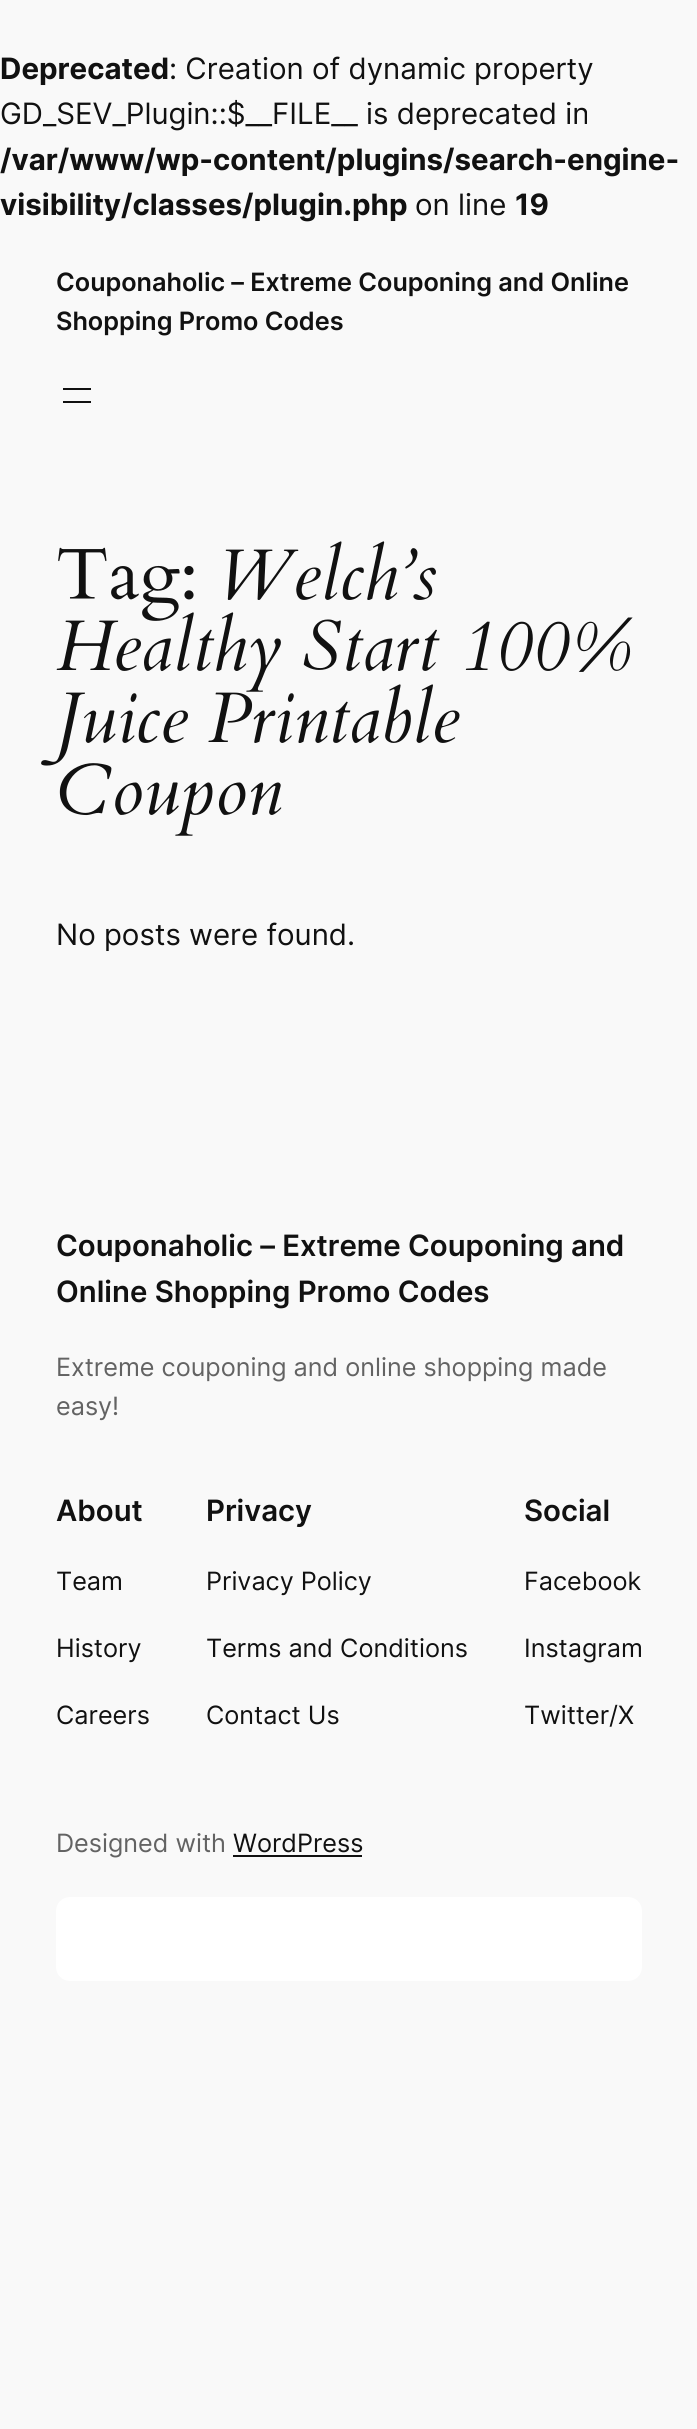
import math
import cairo

surface = cairo.ImageSurface(cairo.FORMAT_RGB24, 697, 2429)
c = cairo.Context(surface)
options = cairo.FontOptions()
options.set_hint_metrics(cairo.HINT_METRICS_OFF)
options.set_hint_style(cairo.HINT_STYLE_NONE)
c.set_font_options(options)
c.set_miter_limit(4)
def C(code):
 c.set_source_rgb(*(v / 255 for v in bytes.fromhex(code[-6:])))
def F(family, size, italic, bold):
 c.select_font_face(family, cairo.FONT_SLANT_ITALIC if italic else cairo.FONT_SLANT_NORMAL, cairo.FONT_WEIGHT_BOLD if bold else cairo.FONT_WEIGHT_NORMAL)
 c.set_font_size(size)
def T(x, y, s):
 c.move_to(x, y)
 c.show_text(s)
def R(x, y, w, h):
 c.rectangle(x, y, w, h)
 c.fill()
def Q(x, y, w, h, r):
 c.new_sub_path()
 for i, (u, v) in enumerate([(x + w - r, y + h - r), (x + r, y + h - r), (x + r, y + r), (x + w - r, y + r)]):
  c.arc(u, v, r, i * math.pi / 2, (i + 1) * math.pi / 2)
 c.close_path()
def I(path, x, y, w, h):
 c.save()
 c.set_source_surface(cairo.ImageSurface.create_from_png(path), x, y)
 c.rectangle(x, y, w, h)
 c.fill()
 c.restore()
C('f9f9f9')
c.paint()
F('Inter',29.4,0,1)
C('111111')
T(0,79,'Deprecated')
F('Inter',29.4,0,0)
T(169,79,': Creation of dynamic property')
T(0,124,'GD_SEV_Plugin::$__FILE__ is deprecated in')
F('Inter',29.4,0,1)
T(0,170,'/var/www/wp-content/plugins/search-engine-')
T(0,215,'visibility/classes/plugin.php')
F('Inter',29.4,0,0)
T(415,215,'on line')
F('Inter',29.4,0,1)
T(515,215,'19')
F('Inter SemiBold',25.25,0,0)
T(56,291,'Couponaholic – Extreme Couponing and Online')
T(56,330,'Shopping Promo Codes')
R(63,388,28,2)
R(63,401,28,2)
I('1.png',58,547,136,74)
F('Cardo',71.75,1,0)
T(217,599,'Welch’s')
T(56,670,'Healthy Start 100%')
T(56,742,'Juice Printable')
T(56,814,'Coupon')
F('Inter',29.4,0,0)
T(56,945,'No posts were found.')
F('Inter SemiBold',29.4,0,0)
T(56,1256,'Couponaholic – Extreme Couponing and')
T(56,1302,'Online Shopping Promo Codes')
F('Inter',25.2,0,0)
C('636363')
T(56,1376,'Extreme couponing and online shopping made')
T(56,1415,'easy!')
F('Inter SemiBold',29.4,0,0)
C('111111')
T(56,1521,'About')
F('Inter',25.2,0,0)
T(56,1590,'Team')
T(56,1657,'History')
T(56,1724,'Careers')
F('Inter SemiBold',29.4,0,0)
T(206,1521,'Privacy')
F('Inter',25.2,0,0)
T(206,1590,'Privacy Policy')
T(206,1657,'Terms and Conditions')
T(206,1724,'Contact Us')
F('Inter SemiBold',29.4,0,0)
T(524,1521,'Social')
F('Inter',25.2,0,0)
T(524,1590,'Facebook')
T(524,1657,'Instagram')
T(524,1724,'Twitter/X')
C('636363')
T(56,1852,'Designed with')
C('111111')
T(233,1852,'WordPress')
R(233,1855,129,2)
C('ffffff')
Q(56,1897,586,84,14)
c.fill()
surface.write_to_png('o.png')
